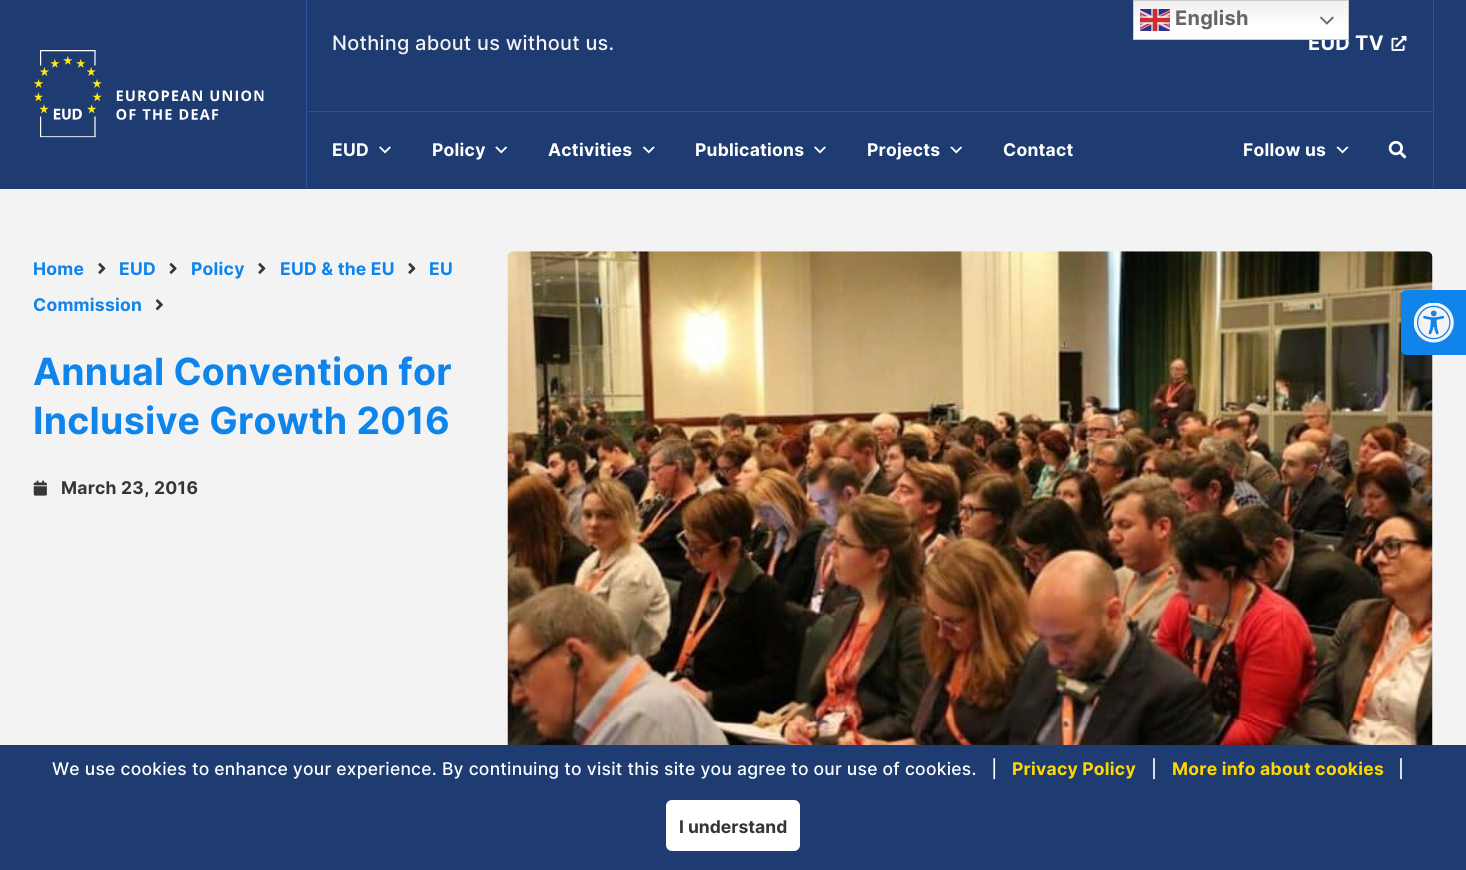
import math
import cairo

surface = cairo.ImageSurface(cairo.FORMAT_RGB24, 1466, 870)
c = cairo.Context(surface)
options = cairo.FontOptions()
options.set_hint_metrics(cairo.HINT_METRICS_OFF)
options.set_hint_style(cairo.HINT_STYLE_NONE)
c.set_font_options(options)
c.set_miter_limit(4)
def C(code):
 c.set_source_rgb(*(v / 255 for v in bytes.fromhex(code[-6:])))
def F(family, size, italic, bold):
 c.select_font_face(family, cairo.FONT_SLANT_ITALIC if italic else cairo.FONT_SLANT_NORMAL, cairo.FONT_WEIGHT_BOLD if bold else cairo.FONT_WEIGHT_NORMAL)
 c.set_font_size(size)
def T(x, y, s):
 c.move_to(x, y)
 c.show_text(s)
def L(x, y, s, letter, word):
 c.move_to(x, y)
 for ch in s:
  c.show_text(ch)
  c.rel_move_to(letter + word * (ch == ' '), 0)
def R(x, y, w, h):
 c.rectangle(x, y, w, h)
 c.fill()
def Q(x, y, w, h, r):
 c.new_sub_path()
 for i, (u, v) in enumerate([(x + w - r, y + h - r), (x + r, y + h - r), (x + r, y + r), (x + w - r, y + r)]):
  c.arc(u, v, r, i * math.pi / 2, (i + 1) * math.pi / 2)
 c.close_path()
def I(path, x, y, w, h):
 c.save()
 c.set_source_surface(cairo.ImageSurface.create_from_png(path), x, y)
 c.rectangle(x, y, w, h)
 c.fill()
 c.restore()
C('f4f3f3')
c.paint()
C('1e3c72')
R(0,0,1466,189)
F('Inter',20,0,1)
C('ffffff')
L(1308,50,'EUD TV',.25,0)
gradient = cairo.LinearGradient(1241,0,1241,40)
gradient.add_color_stop_rgba(0,0.937,0.937,0.937,1)
gradient.add_color_stop_rgba(.7,1,1,1,1)
c.set_source(gradient)
R(1134,1,214,38)
c.rectangle(1133.5,.5,215,39)
C('cccccc')
c.set_line_width(1)
c.stroke()
I('1.png',1140,8,30,24)
C('666666')
L(1175,25,'English',.25,0)
I('2.png',1320,16,14,9)
I('3.png',34,50,230,88)
C('2a5298')
R(1433,0,1,188)
R(306,0,1,188)
F('Inter Medium',20,0,0)
C('f4f3f3')
L(332,50,'Nothing about us without us.',.25,0)
I('4.png',1391,35,16,16)
C('2a5298')
R(308,111,1125,1)
F('Inter',17.5,0,1)
C('ffffff')
L(332,156,'EUD',.25,0)
I('5.png',379,146,12,8)
L(432,156,'Policy',.25,0)
I('6.png',495,146,13,8)
L(548,156,'Activities',.25,0)
I('7.png',642,146,13,8)
L(695,156,'Publications',.25,0)
I('5.png',814,146,12,8)
L(867,156,'Projects',.25,0)
I('6.png',950,146,13,8)
L(1003,156,'Contact',.25,0)
L(1243,156,'Follow us',.25,0)
I('8.png',1336,146,13,8)
I('9.png',1388,140,19,19)
C('0f84eb')
L(33,275,'Home',.25,0)
I('10.png',98,263,8,11)
L(119,275,'EUD',.25,0)
I('11.png',169,263,8,11)
L(191,275,'Policy',.25,0)
I('10.png',258,263,8,11)
L(280,275,'EUD & the EU',.25,0)
I('10.png',408,263,8,11)
L(429,275,'EU',.25,0)
L(33,311,'Commission',.25,0)
I('12.png',155,299,8,12)
F('Inter',37.5,0,1)
L(33,385,'Annual Convention for',.25,0)
L(33,434,'Inclusive Growth 2016',.25,0)
I('13.png',33,480,14,16)
F('Inter',17.5,0,1)
C('363636')
L(61,494,'March 23, 2016',.25,0)
I('14.png',507,251,926,494)
C('0f84eb')
c.new_path()
c.move_to(1407,290)
c.line_to(1466,290)
c.line_to(1466,355)
c.line_to(1407,355)
c.curve_to(1403.5,355,1401,352.5,1401,349)
c.line_to(1401,296)
c.curve_to(1401,292.5,1403.5,290,1407,290)
c.close_path()
c.fill()
I('15.png',1414,303,40,40)
C('1e3c72')
R(0,745,1466,125)
F('Inter Medium',17.5,0,0)
C('ffffff')
L(52,775,'We use cookies to enhance your experience. By continuing to visit this site you agree to our use of cookies.   |',.25,0)
F('Inter',17.5,0,1)
C('ffd700')
L(1012,775,'Privacy Policy',.25,0)
F('Inter Medium',17.5,0,0)
C('ffffff')
L(1151,775,'|',.25,0)
F('Inter',17.5,0,1)
C('ffd700')
L(1172,775,'More info about cookies',.25,0)
F('Inter Medium',17.5,0,0)
C('ffffff')
L(1398,775,'|',.25,0)
Q(666,800,134,51,6)
c.fill()
F('Inter',17.5,0,1)
C('363636')
T(679,833,'I understand')
surface.write_to_png('o.png')
